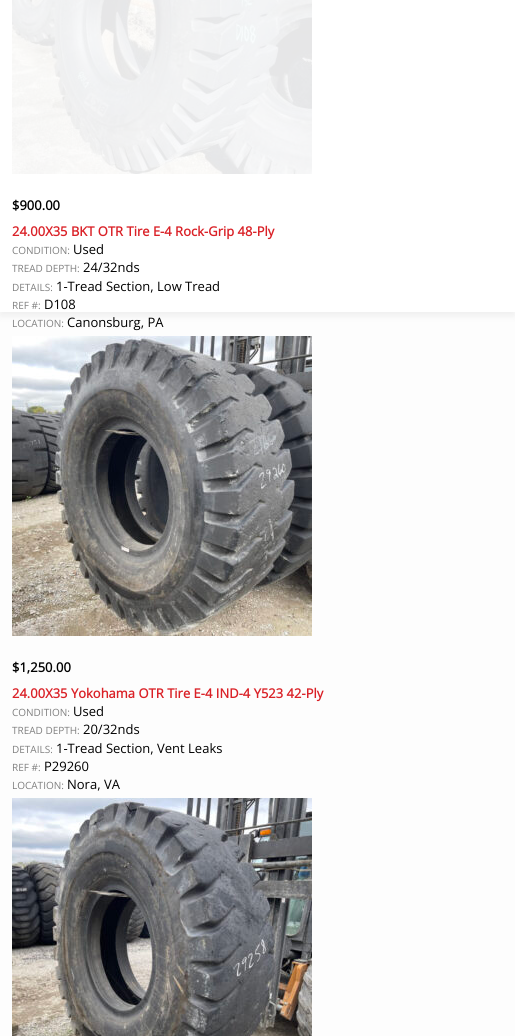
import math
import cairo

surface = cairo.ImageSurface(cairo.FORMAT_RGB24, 515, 1036)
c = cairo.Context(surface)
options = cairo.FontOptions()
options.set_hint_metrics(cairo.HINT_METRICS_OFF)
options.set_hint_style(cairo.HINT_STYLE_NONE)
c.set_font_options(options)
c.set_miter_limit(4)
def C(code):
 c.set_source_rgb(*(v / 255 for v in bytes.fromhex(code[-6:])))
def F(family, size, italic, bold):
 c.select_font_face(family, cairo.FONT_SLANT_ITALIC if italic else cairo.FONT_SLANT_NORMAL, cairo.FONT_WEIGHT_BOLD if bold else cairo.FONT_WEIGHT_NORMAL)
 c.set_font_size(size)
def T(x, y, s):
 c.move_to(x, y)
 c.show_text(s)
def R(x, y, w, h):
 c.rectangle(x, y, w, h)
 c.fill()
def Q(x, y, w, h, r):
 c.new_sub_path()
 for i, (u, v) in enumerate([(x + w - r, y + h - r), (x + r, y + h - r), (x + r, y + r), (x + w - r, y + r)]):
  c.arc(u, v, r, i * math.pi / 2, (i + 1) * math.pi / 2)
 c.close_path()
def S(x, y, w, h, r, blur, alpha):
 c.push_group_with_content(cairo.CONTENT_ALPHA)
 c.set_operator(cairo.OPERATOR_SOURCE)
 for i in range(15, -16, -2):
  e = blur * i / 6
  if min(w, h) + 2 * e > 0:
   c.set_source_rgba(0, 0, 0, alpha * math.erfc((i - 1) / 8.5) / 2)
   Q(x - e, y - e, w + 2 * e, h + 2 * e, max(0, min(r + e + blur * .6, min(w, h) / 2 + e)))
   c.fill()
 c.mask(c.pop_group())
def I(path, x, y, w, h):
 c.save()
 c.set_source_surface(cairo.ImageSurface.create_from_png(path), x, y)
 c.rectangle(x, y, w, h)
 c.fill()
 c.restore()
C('fdfdfd')
c.paint()
C('000000')
S(0,-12,515,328,0,4,.06)
C('ffffff')
R(0,0,515,312)
I('1.png',12,0,300,174)
F('Open Sans',13,0,1)
C('000000')
T(12,210,'$900.00')
C('da2127')
T(12,236,'24.00X35 BKT OTR Tire E-4 Rock-Grip 48-Ply')
F('Open Sans',10,0,0)
C('808080')
T(12,254,'CONDITION:')
F('Open Sans',13,0,0)
C('000000')
T(73,254,'Used')
F('Open Sans',10,0,0)
C('808080')
T(12,272,'TREAD DEPTH:')
F('Open Sans',13,0,0)
C('000000')
T(83,272,'24/32nds')
F('Open Sans',10,0,0)
C('808080')
T(12,291,'DETAILS:')
F('Open Sans',13,0,0)
C('000000')
T(56,291,'1-Tread Section, Low Tread')
F('Open Sans',10,0,0)
C('808080')
T(12,309,'REF #:')
F('Open Sans',13,0,0)
C('000000')
T(44,309,'D108')
F('Open Sans',10,0,0)
C('808080')
T(12,327,'LOCATION:')
F('Open Sans',13,0,0)
C('000000')
T(67,327,'Canonsburg, PA')
I('2.png',12,336,300,300)
F('Open Sans',13,0,1)
T(12,672,'$1,250.00')
C('da2127')
T(12,698,'24.00X35 Yokohama OTR Tire E-4 IND-4 Y523 42-Ply')
F('Open Sans',10,0,0)
C('808080')
T(12,716,'CONDITION:')
F('Open Sans',13,0,0)
C('000000')
T(73,716,'Used')
F('Open Sans',10,0,0)
C('808080')
T(12,734,'TREAD DEPTH:')
F('Open Sans',13,0,0)
C('000000')
T(83,734,'20/32nds')
F('Open Sans',10,0,0)
C('808080')
T(12,753,'DETAILS:')
F('Open Sans',13,0,0)
C('000000')
T(56,753,'1-Tread Section, Vent Leaks')
F('Open Sans',10,0,0)
C('808080')
T(12,771,'REF #:')
F('Open Sans',13,0,0)
C('000000')
T(44,771,'P29260')
F('Open Sans',10,0,0)
C('808080')
T(12,789,'LOCATION:')
F('Open Sans',13,0,0)
C('000000')
T(67,789,'Nora, VA')
I('3.png',12,798,300,238)
surface.write_to_png('o.png')
